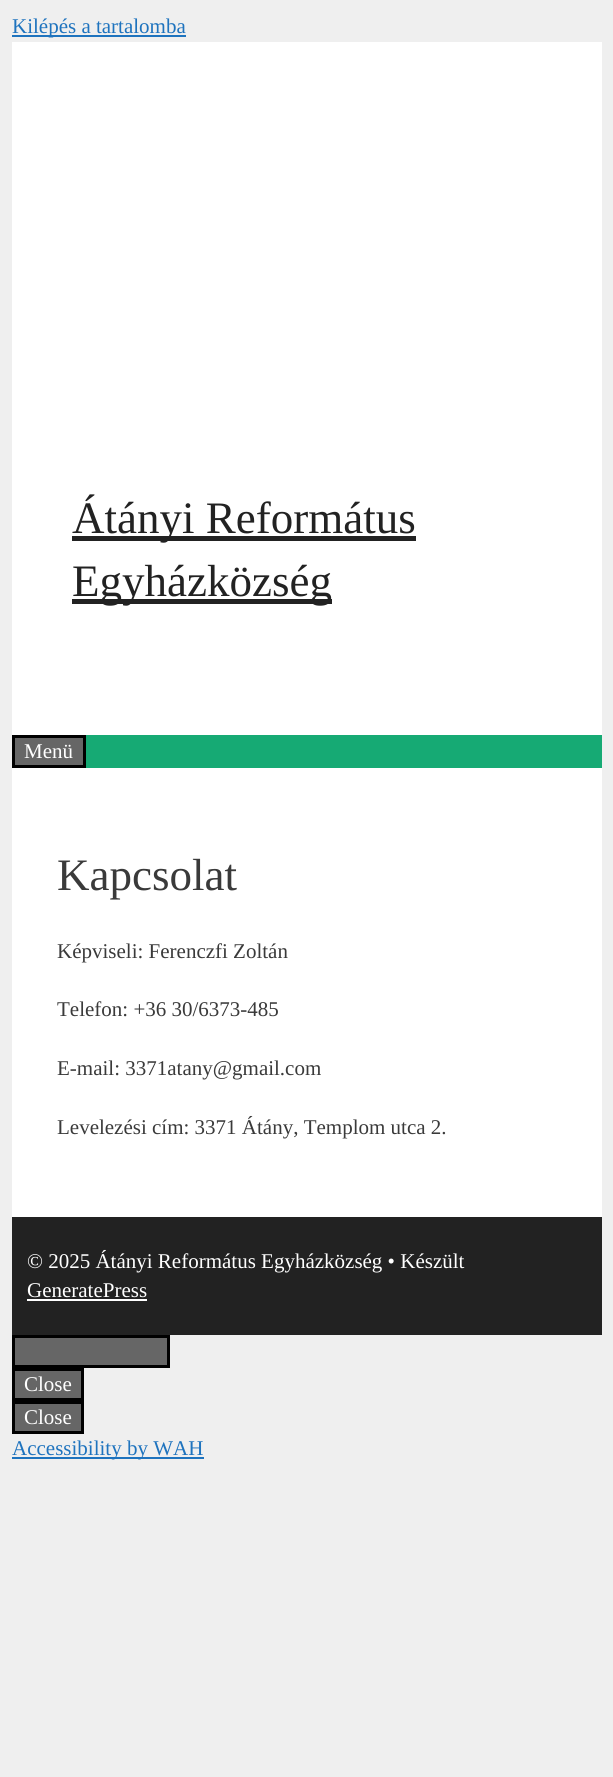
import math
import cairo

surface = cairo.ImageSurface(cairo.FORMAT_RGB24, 613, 1777)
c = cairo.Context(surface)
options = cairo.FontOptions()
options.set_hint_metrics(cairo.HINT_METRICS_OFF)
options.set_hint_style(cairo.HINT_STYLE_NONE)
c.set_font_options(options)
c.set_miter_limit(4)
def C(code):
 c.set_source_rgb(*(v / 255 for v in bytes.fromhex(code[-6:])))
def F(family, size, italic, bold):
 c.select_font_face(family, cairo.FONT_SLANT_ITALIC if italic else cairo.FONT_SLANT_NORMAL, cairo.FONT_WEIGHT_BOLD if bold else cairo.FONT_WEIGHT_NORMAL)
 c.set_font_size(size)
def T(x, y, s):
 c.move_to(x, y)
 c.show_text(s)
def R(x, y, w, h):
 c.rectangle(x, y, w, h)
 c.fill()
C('efefef')
c.paint()
C('1e73be')
R(12,35,174,2)
F('Liberation Serif',21,0,0)
T(12,33,'Kilépés a tartalomba')
C('ffffff')
R(12,42,590,693)
C('222222')
R(72,536,344,5)
F('Liberation Serif',45,0,0)
T(72,533,'Átányi Református')
R(72,599,260,5)
T(72,596,'Egyházközség')
C('16aa74')
R(86,735,516,33)
C('666666')
c.rectangle(13.5,736.5,71,30)
c.fill_preserve()
C('000000')
c.set_line_width(3)
c.stroke()
F('Liberation Serif',21,0,0)
C('ffffff')
T(24,758,'Menü')
R(12,768,590,449)
F('Liberation Serif',45,0,0)
C('3a3a3a')
T(57,890,'Kapcsolat')
F('Liberation Serif',21,0,0)
T(57,958,'Képviseli: Ferenczfi Zoltán')
T(57,1016,'Telefon: +36 30/6373-485')
T(57,1075,'E-mail: 3371atany@gmail.com')
T(57,1134,'Levelezési cím: 3371 Átány, Templom utca 2.')
C('222222')
R(12,1217,590,118)
C('ffffff')
T(27,1268,'© 2025 Átányi Református Egyházközség • Készült')
T(27,1297,'GeneratePress')
R(27,1299,120,2)
C('666666')
c.rectangle(13.5,1336.5,155,30)
c.fill_preserve()
C('000000')
c.stroke()
C('666666')
c.rectangle(13.5,1369.5,69,30)
c.fill_preserve()
C('000000')
c.stroke()
C('ffffff')
T(24,1391,'Close')
C('666666')
c.rectangle(13.5,1402.5,69,30)
c.fill_preserve()
C('000000')
c.stroke()
C('ffffff')
T(24,1424,'Close')
C('1e73be')
R(12,1457,192,2)
T(12,1455,'Accessibility by WAH')
surface.write_to_png('o.png')
